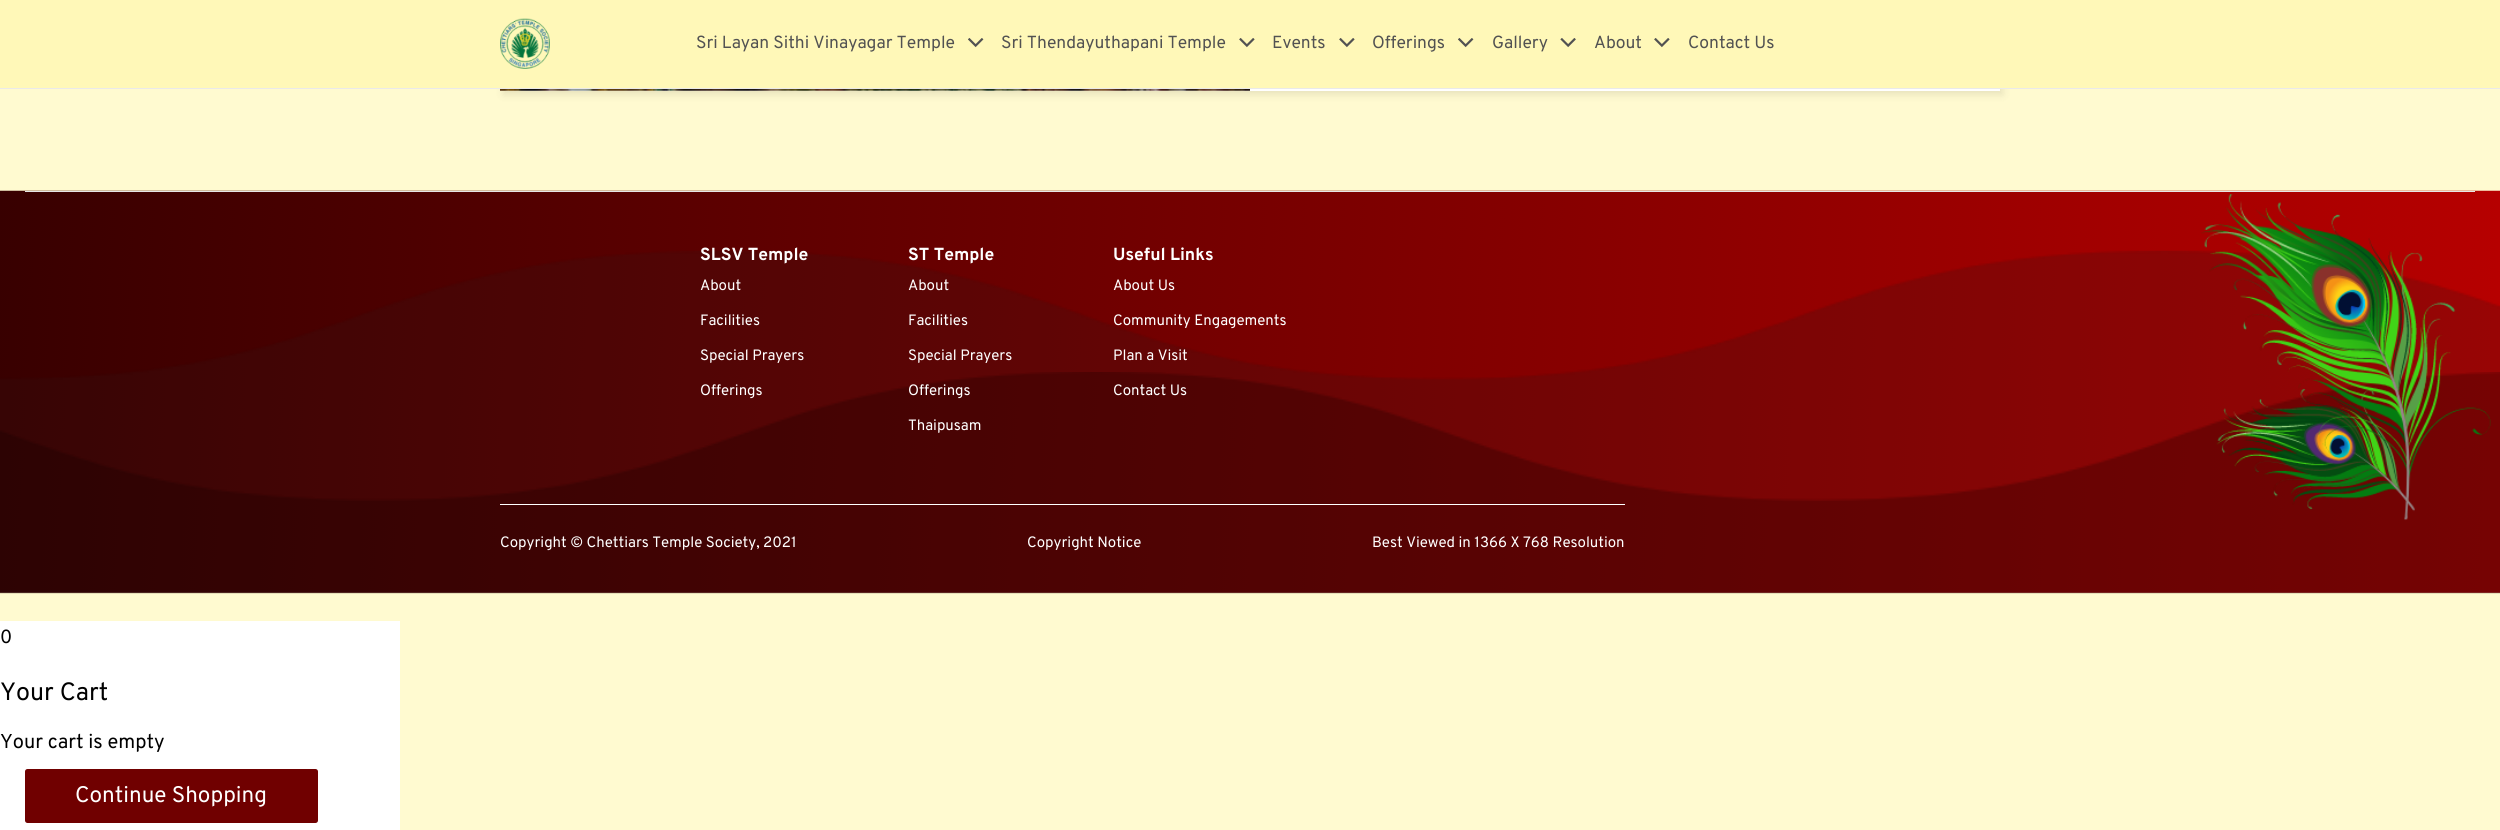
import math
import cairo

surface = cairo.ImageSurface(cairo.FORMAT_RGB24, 2500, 830)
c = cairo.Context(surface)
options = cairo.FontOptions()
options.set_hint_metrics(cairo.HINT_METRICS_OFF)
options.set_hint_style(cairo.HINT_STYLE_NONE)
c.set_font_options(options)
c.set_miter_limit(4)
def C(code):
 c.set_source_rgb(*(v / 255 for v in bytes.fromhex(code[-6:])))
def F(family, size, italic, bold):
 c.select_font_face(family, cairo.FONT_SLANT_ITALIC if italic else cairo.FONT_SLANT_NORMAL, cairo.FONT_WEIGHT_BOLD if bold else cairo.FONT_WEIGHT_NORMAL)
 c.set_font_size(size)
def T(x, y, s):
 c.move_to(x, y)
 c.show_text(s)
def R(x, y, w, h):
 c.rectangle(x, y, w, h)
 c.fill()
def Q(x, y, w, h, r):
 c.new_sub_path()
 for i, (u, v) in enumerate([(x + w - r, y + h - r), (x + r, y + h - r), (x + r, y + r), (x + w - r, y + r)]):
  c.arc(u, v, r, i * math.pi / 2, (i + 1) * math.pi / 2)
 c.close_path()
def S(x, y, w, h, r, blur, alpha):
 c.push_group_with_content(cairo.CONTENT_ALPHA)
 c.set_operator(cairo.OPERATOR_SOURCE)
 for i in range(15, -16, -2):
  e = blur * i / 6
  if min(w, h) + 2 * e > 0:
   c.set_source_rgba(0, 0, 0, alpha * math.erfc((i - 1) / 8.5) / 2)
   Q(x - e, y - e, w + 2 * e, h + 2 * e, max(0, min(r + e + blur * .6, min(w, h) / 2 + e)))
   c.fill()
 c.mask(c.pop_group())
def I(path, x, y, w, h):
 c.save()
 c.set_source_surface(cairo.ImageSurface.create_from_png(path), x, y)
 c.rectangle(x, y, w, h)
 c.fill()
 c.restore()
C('fffad0')
c.paint()
C('000000')
S(503,-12,1500,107,0,4,.09)
C('ffffff')
R(500,89,1500,2)
I('1.png',500,89,750,2)
C('fff8b8')
R(0,0,2500,88)
C('eaeaea')
R(0,88,2500,1)
I('2.png',500,18,50,51)
F('Overpass',17.5,0,0)
C('525252')
T(696,48,'Sri Layan Sithi Vinayagar Temple')
I('3.png',968,38,16,10)
T(1001,48,'Sri Thendayuthapani Temple')
I('4.png',1239,38,16,10)
T(1272,48,'Events')
I('4.png',1339,38,16,10)
T(1372,48,'Offerings')
I('3.png',1458,38,16,10)
T(1492,48,'Gallery')
I('5.png',1560,38,16,10)
T(1594,48,'About')
I('4.png',1654,38,16,10)
T(1688,48,'Contact Us')
I('6.png',0,190,2500,404)
C('e6e6e6')
R(25,191,2450,1)
F('Overpass',17.5,0,1)
C('ffffff')
T(700,260,'SLSV Temple')
F('Overpass',15,0,0)
T(700,290,'About')
T(700,325,'Facilities')
T(700,360,'Special Prayers')
T(700,395,'Offerings')
F('Overpass',17.5,0,1)
T(908,260,'ST Temple')
F('Overpass',15,0,0)
T(908,290,'About')
T(908,325,'Facilities')
T(908,360,'Special Prayers')
T(908,395,'Offerings')
T(908,430,'Thaipusam')
F('Overpass',17.5,0,1)
T(1113,260,'Useful Links')
F('Overpass',15,0,0)
T(1113,290,'About Us')
T(1113,325,'Community Engagements')
T(1113,360,'Plan a Visit')
T(1113,395,'Contact Us')
R(500,504,1125,1)
T(500,547,'Copyright © Chettiars Temple Society, 2021')
T(1027,547,'Copyright Notice')
T(1372,547,'Best Viewed in 1366 X 768 Resolution')
R(0,621,400,209)
F('Overpass',19,0,0)
C('000000')
T(0,643,'0')
F('Overpass',25,0,0)
T(0,700,'Your Cart')
F('Overpass',20,0,0)
T(0,748,'Your cart is empty')
C('700000')
Q(25,769,293,54,2.5)
c.fill()
F('Overpass',22.5,0,0)
C('ffffff')
T(75,802,'Continue Shopping')
surface.write_to_png('o.png')
